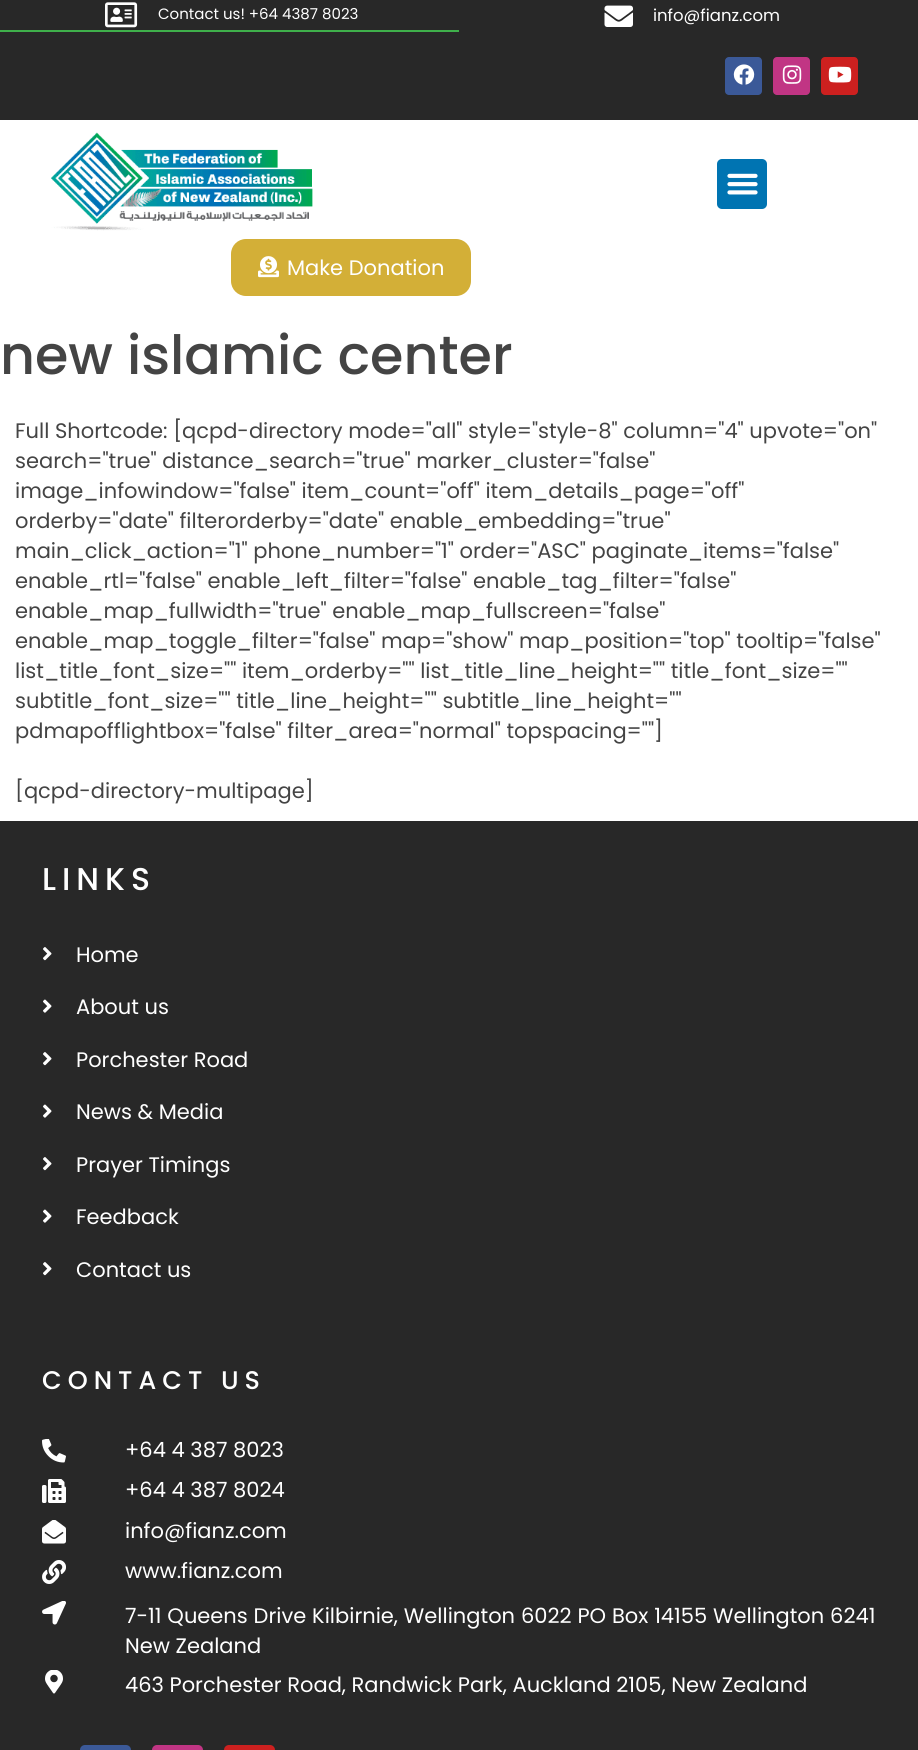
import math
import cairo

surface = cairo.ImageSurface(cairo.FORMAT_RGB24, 918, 1750)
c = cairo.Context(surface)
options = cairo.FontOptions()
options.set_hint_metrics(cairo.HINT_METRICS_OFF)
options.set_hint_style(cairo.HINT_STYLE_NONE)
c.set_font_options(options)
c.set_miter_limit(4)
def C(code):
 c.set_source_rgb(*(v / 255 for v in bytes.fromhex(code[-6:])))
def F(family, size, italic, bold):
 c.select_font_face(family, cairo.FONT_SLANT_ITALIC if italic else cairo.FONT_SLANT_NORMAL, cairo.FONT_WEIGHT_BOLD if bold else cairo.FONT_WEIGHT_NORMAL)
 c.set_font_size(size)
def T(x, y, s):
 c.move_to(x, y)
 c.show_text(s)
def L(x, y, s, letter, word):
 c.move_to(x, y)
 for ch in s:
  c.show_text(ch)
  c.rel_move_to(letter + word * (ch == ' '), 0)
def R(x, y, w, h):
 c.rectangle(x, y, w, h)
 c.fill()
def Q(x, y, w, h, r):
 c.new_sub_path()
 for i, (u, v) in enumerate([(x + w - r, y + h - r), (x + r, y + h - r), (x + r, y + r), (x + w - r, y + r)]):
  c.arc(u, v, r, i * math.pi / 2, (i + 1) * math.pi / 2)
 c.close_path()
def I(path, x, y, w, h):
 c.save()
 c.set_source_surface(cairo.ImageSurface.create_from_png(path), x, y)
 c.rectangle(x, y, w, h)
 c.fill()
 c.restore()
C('ffffff')
c.paint()
C('282828')
R(0,0,918,120)
C('3fb04b')
R(0,30,459,2)
I('1.png',105,2,33,26)
F('Poppins',15,0,0)
C('ffffff')
T(158,19,'Contact us! +64 4387 8023')
I('2.png',604,5,29,22)
F('Poppins',16.5,0,0)
T(653,21,'info@fianz.com')
C('3b5998')
Q(725,57,37,38,4)
c.fill()
I('3.png',733,64,22,21)
C('c13584')
Q(773,57,37,38,4)
c.fill()
I('4.png',782,65,20,19)
C('cd201f')
Q(821,57,37,38,4)
c.fill()
I('5.png',828,66,24,17)
I('6.png',51,132,262,99)
C('0074b2')
Q(717,159,50,50,5)
c.fill()
I('7.png',727,173,31,22)
C('d3af37')
Q(231,239,240,57,15)
c.fill()
I('8.png',258,256,21,22)
F('Poppins',21,0,0)
C('ffffff')
T(287,275,'Make Donation')
F('Poppins Medium',54,0,0)
C('444444')
T(0,374,'new islamic center')
F('Poppins',21,0,0)
T(15,438,'Full Shortcode: [qcpd-directory mode="all" style="style-8" column="4" upvote="on"')
T(15,468,'search="true" distance_search="true" marker_cluster="false"')
T(15,498,'image_infowindow="false" item_count="off" item_details_page="off"')
T(15,528,'orderby="date" filterorderby="date" enable_embedding="true"')
T(15,558,'main_click_action="1" phone_number="1" order="ASC" paginate_items="false"')
T(15,588,'enable_rtl="false" enable_left_filter="false" enable_tag_filter="false"')
T(15,618,'enable_map_fullwidth="true" enable_map_fullscreen="false"')
T(15,648,'enable_map_toggle_filter="false" map="show" map_position="top" tooltip="false"')
T(15,678,'list_title_font_size="" item_orderby="" list_title_line_height="" title_font_size=""')
T(15,708,'subtitle_font_size="" title_line_height="" subtitle_line_height=""')
T(15,738,'pdmapofflightbox="false" filter_area="normal" topspacing=""]')
T(15,798,'[qcpd-directory-multipage]')
C('282828')
R(0,821,918,929)
F('Poppins Medium',31.5,0,0)
C('ffffff')
L(42,890,'LINKS',6,0)
I('9.png',43,947,9,14)
F('Poppins',21,0,0)
T(76,962,'Home')
I('10.png',43,999,9,14)
T(76,1014,'About us')
I('9.png',43,1052,9,14)
T(76,1067,'Porchester Road')
I('10.png',43,1104,9,14)
T(76,1119,'News & Media')
I('9.png',43,1157,9,14)
T(76,1172,'Prayer Timings')
I('10.png',43,1209,9,14)
T(76,1224,'Feedback')
I('9.png',43,1262,9,14)
T(76,1277,'Contact us')
F('Poppins Medium',25.5,0,0)
L(42,1389,'CONTACT US',6,0)
I('11.png',42,1439,24,24)
F('Poppins',21,0,0)
T(125,1457,'+64 4 387 8023')
I('12.png',42,1479,24,24)
T(125,1497,'+64 4 387 8024')
I('13.png',42,1520,24,24)
T(125,1538,'info@fianz.com')
I('14.png',42,1560,24,24)
T(125,1578,'www.fianz.com')
I('15.png',42,1601,24,24)
L(125,1623,'7-11 Queens Drive Kilbirnie, Wellington 6022 PO Box 14155 Wellington 6241',0,.25)
T(125,1653,'New Zealand')
I('16.png',45,1670,18,24)
T(125,1692,'463 Porchester Road, Randwick Park, Auckland 2105, New Zealand')
C('3b5998')
Q(80,1745,51,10,5)
c.fill()
C('c13584')
Q(152,1745,51,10,5)
c.fill()
C('cd201f')
Q(224,1745,51,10,5)
c.fill()
surface.write_to_png('o.png')
